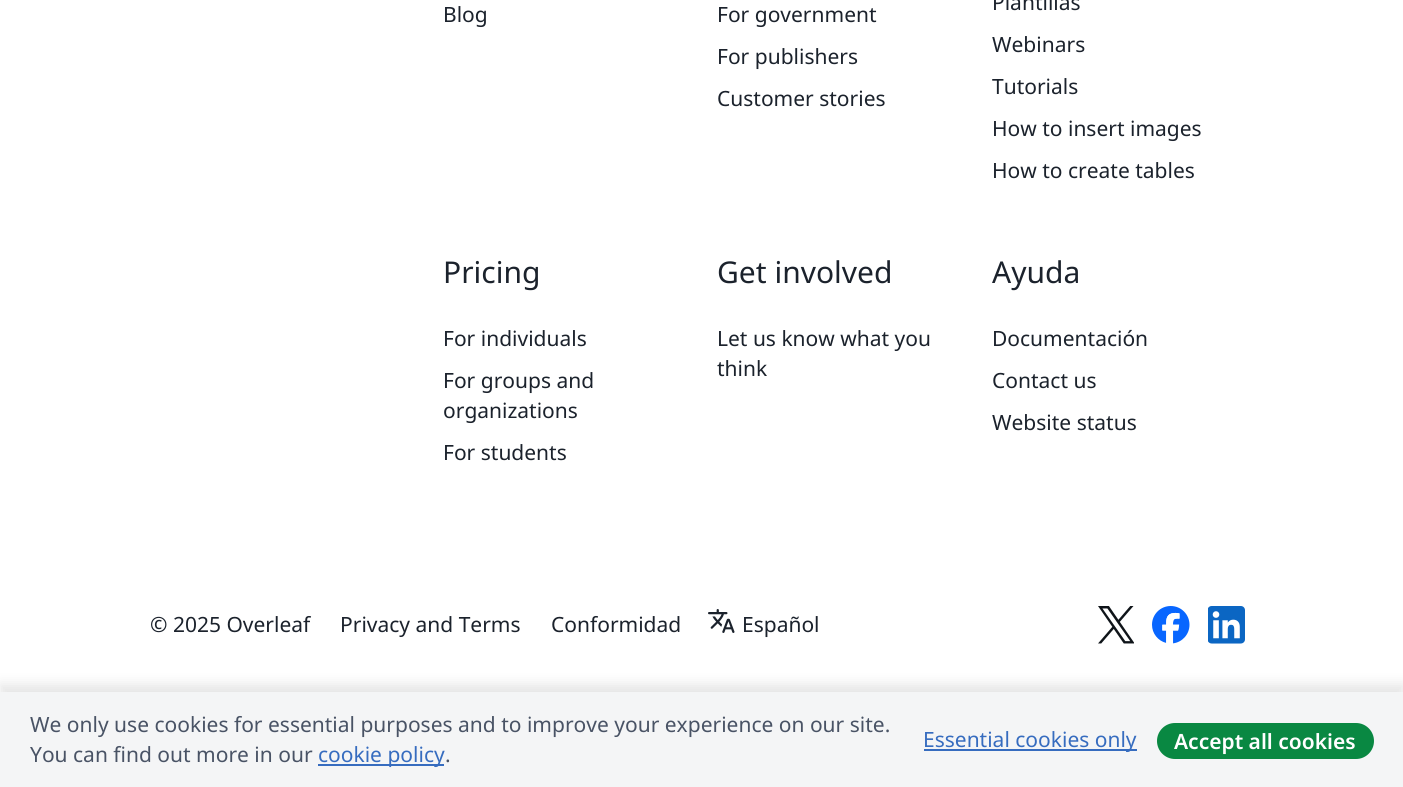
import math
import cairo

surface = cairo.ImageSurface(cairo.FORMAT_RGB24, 1403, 787)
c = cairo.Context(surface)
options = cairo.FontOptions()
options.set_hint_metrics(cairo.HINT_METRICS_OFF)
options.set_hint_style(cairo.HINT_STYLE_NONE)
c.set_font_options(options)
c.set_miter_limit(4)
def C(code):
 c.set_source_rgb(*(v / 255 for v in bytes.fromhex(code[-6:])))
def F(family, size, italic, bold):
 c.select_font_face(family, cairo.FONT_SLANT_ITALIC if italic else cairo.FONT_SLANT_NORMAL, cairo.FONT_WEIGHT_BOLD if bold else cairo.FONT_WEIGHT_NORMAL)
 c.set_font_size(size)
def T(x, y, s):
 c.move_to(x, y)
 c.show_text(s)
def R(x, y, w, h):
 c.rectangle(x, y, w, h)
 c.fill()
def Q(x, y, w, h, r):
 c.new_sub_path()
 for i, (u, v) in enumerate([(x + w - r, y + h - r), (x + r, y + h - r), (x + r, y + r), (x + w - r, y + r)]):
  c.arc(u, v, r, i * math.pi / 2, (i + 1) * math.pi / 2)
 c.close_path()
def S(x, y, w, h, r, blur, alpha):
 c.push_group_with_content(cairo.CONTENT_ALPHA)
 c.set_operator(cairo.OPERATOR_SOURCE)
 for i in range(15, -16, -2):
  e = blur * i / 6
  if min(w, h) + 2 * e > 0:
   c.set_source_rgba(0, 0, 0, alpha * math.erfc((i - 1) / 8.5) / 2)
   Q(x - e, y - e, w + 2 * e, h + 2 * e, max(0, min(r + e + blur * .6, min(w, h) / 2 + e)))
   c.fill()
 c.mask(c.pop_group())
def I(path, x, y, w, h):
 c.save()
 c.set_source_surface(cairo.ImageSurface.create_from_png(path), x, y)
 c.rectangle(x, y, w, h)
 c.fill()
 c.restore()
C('ffffff')
c.paint()
F('Noto Sans',21,0,0)
C('1b222c')
T(443,22,'Blog')
T(717,22,'For government')
T(717,64,'For publishers')
T(717,106,'Customer stories')
T(992,10,'Plantillas')
T(992,52,'Webinars')
T(992,94,'Tutorials')
T(992,136,'How to insert images')
T(992,178,'How to create tables')
F('Noto Sans',30,0,0)
T(443,283,'Pricing')
F('Noto Sans',21,0,0)
T(443,346,'For individuals')
T(443,388,'For groups and')
T(443,418,'organizations')
T(443,460,'For students')
F('Noto Sans',30,0,0)
T(717,283,'Get involved')
F('Noto Sans',21,0,0)
T(717,346,'Let us know what you')
T(717,376,'think')
F('Noto Sans',30,0,0)
T(992,283,'Ayuda')
F('Noto Sans',21,0,0)
T(992,346,'Documentación')
T(992,388,'Contact us')
T(992,430,'Website status')
T(150,632,'© 2025 Overleaf')
T(340,632,'Privacy and Terms')
T(551,632,'Conformidad')
I('1.png',708,609,27,24)
T(742,632,'Español')
I('2.png',1098,606,36,38)
I('3.png',1152,606,38,38)
I('4.png',1208,606,37,38)
C('000000')
S(0,684,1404,96,0,6,.1)
C('f4f5f6')
R(0,692,1403,95)
C('495365')
T(30,732,'We only use cookies for essential purposes and to improve your experience on our site.')
T(30,762,'You can find out more in our')
C('366cbf')
R(318,764,126,2)
T(318,762,'cookie policy')
C('495365')
T(445,762,'.')
C('366cbf')
R(924,749,213,2)
T(923,747,'Essential cookies only')
C('098842')
Q(1157,723,217,36,18)
c.fill()
F('Noto Sans SemiBold',21,0,0)
C('ffffff')
T(1174,749,'Accept all cookies')
surface.write_to_png('o.png')
